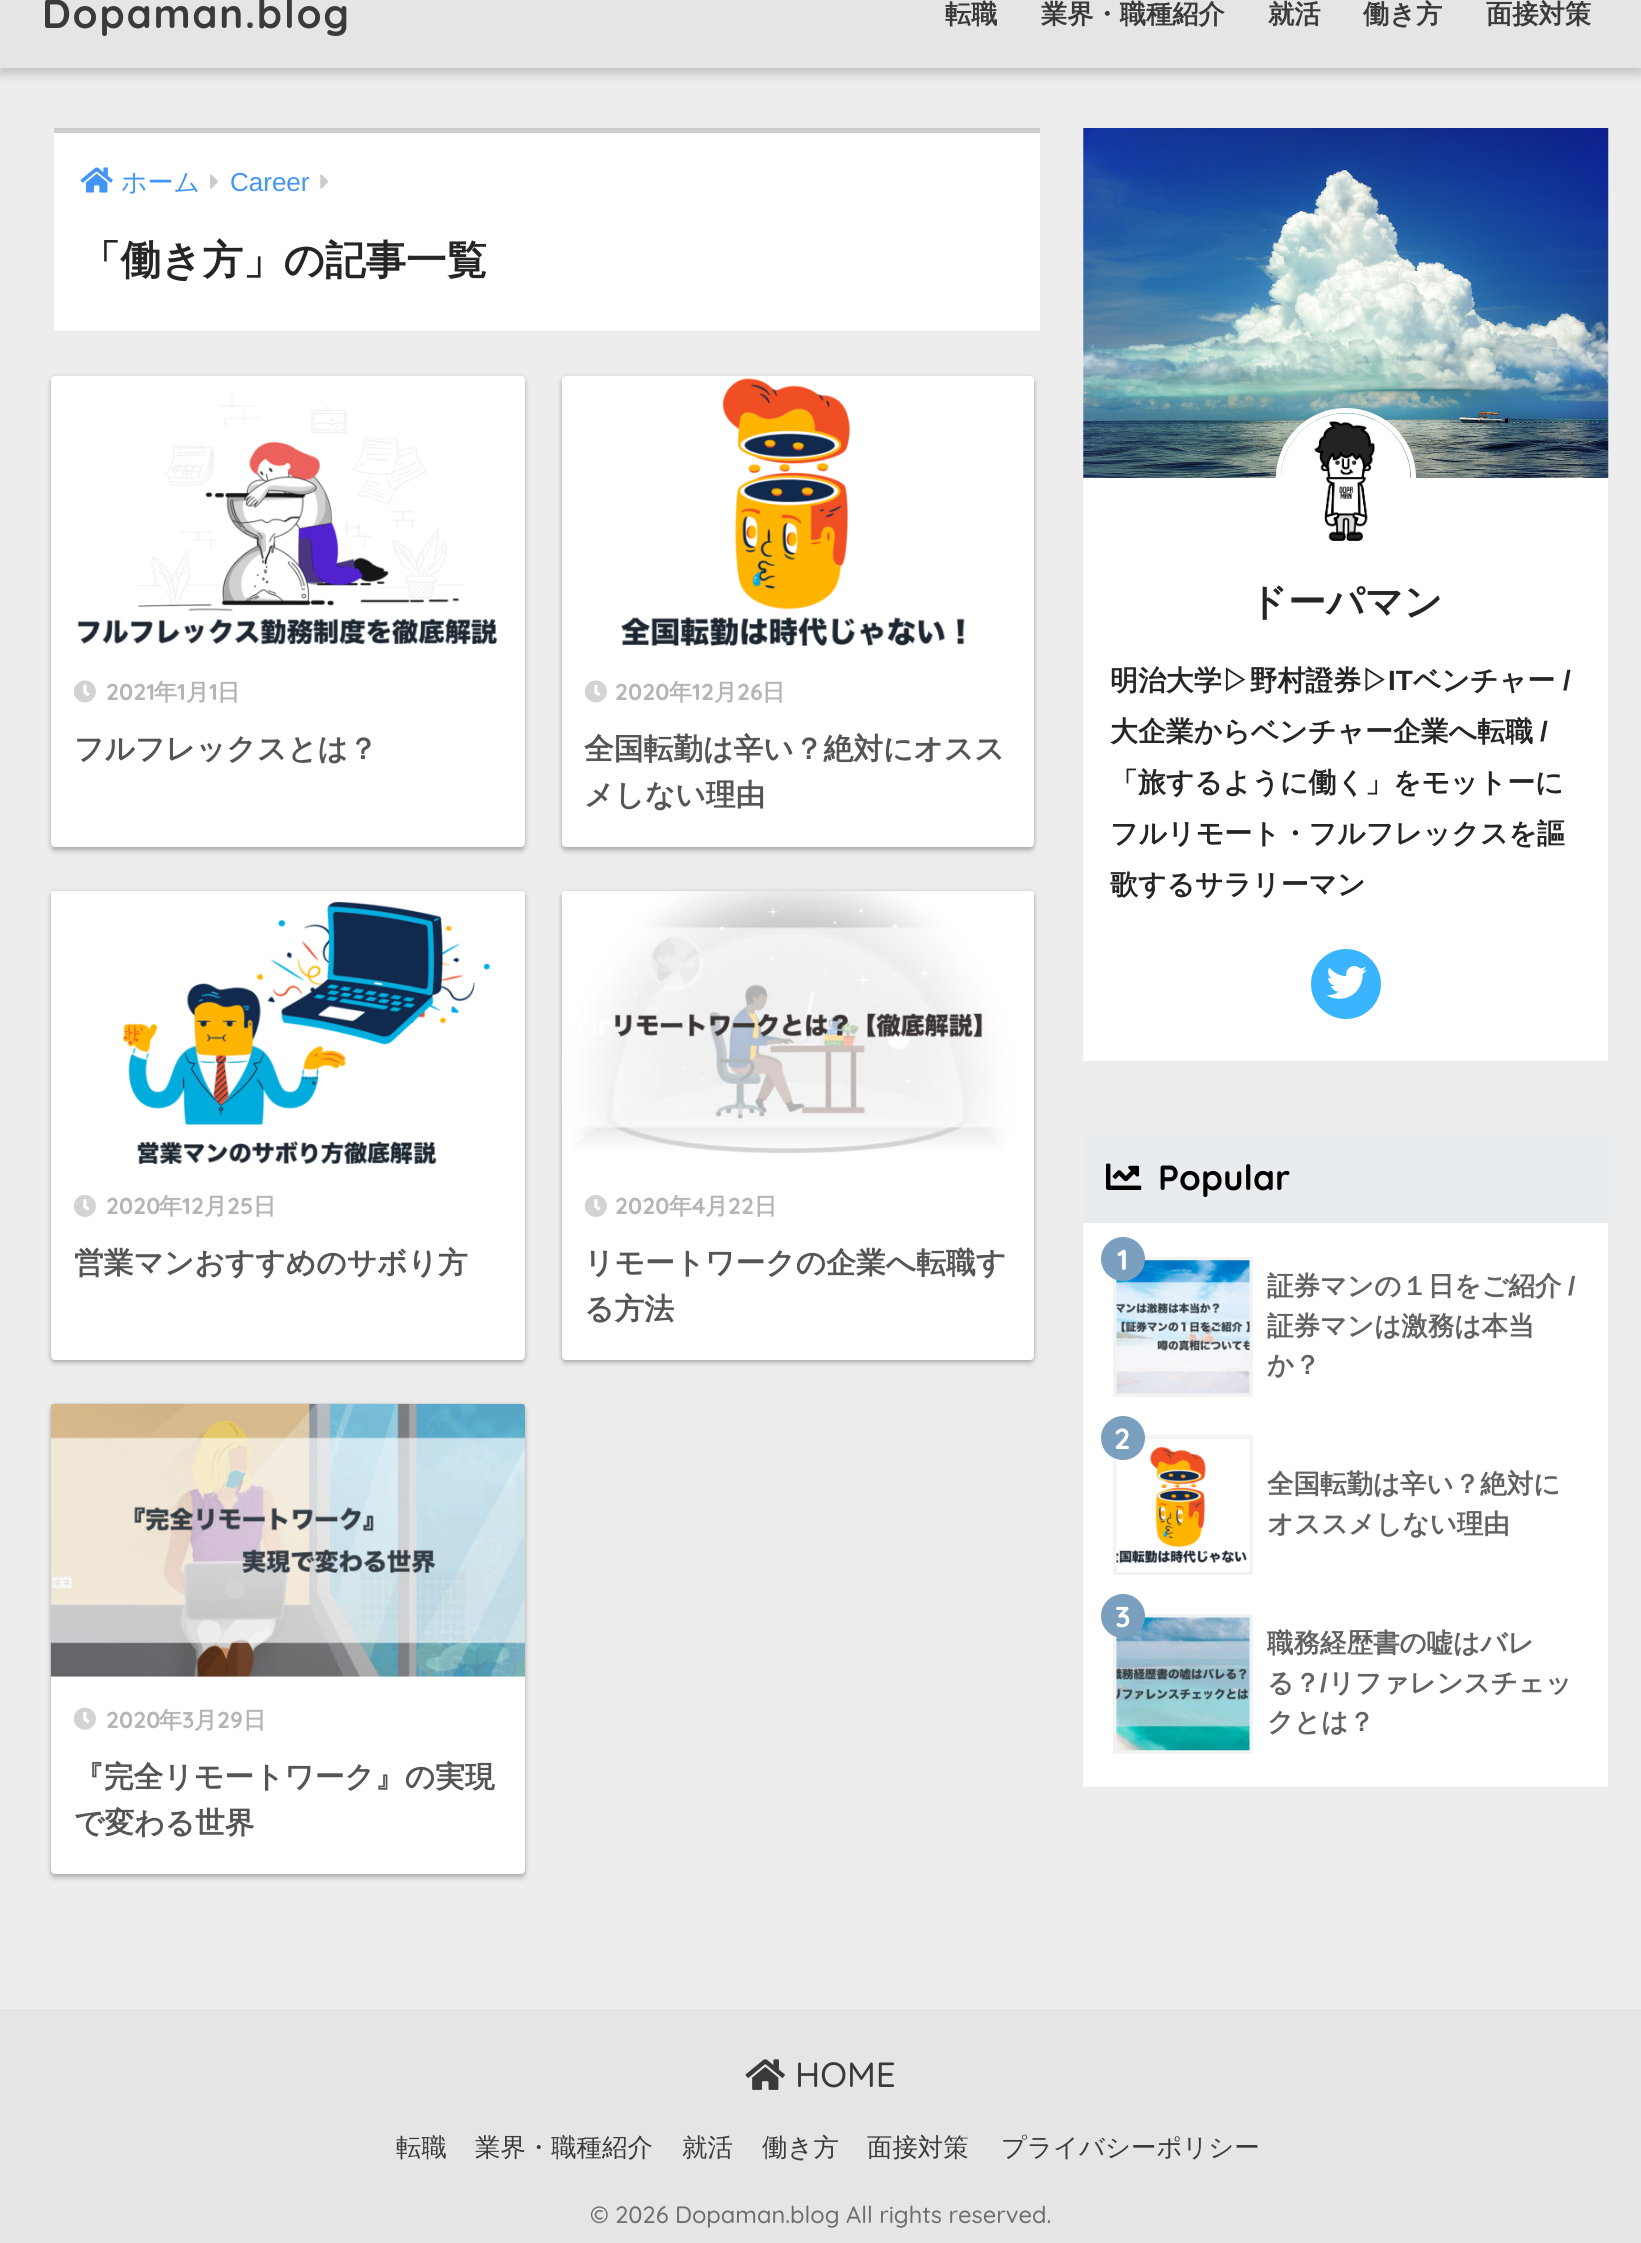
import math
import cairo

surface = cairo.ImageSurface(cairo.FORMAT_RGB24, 1641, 2243)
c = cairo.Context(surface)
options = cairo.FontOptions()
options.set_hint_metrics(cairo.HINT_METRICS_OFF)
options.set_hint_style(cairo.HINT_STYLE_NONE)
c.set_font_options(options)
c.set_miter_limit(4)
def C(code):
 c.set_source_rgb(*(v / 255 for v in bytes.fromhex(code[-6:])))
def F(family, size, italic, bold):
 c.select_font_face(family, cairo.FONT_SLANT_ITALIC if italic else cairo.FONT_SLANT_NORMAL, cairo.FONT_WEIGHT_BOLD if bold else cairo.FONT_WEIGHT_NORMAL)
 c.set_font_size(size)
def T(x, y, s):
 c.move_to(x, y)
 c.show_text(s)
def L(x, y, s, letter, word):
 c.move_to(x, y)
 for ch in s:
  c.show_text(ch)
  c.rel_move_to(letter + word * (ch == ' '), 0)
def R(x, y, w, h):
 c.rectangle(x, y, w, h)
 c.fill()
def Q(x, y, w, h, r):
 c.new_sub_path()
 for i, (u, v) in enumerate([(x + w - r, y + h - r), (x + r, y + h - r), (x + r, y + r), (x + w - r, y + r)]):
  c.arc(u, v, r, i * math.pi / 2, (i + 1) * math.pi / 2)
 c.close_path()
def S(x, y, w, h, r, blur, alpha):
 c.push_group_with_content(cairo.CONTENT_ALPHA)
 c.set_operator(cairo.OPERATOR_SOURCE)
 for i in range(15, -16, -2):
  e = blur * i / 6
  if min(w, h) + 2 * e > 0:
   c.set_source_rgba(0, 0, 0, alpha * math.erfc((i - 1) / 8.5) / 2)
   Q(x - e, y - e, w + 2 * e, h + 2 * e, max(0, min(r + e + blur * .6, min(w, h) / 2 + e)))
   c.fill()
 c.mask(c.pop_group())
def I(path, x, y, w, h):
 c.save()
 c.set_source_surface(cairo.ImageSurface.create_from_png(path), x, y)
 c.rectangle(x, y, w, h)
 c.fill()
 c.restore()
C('ededed')
c.paint()
C('000000')
S(0,-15,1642,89,0,5,.18)
C('e5e5e5')
R(0,0,1641,68)
F('Quicksand',40.25,0,1)
C('3a3a3a')
L(42,28,'Dopaman.blog',1.75,0)
F('WenQuanYi Zen Hei',26.25,0,1)
T(945,23,'転職')
T(1041,23,'業界・職種紹介')
T(1268,23,'就活')
T(1363,23,'働き方')
T(1486,23,'面接対策')
C('ffffff')
R(54,133,986,198)
C('cccccc')
R(54,128,986,5)
I('1.png',80,167,33,26)
F('WenQuanYi Zen Hei Medium',26,0,0)
C('4295f4')
T(121,191,'ホーム')
I('2.png',210,174,8,15)
F('Liberation Sans',26,0,0)
T(230,191,'Career')
I('3.png',320,174,9,15)
F('WenQuanYi Zen Hei',40.5,0,1)
C('252525')
T(80,274,'「働き方」の記事一覧')
C('000000')
S(51,380,474,471,4,2.5,.22)
S(51,376,474,471,4,2.5,.12)
C('ffffff')
Q(51,376,474,471,4)
c.fill()
I('4.png',51,377,474,268)
I('5.png',73,680,23,23)
F('Quicksand',23,0,1)
C('b5b5b5')
T(106,700,'2021')
F('WenQuanYi Zen Hei',23,0,1)
T(154,700,'年')
F('Quicksand',23,0,1)
T(177,700,'1')
F('WenQuanYi Zen Hei',23,0,1)
T(186,700,'月')
F('Quicksand',23,0,1)
T(209,700,'1')
F('WenQuanYi Zen Hei',23,0,1)
T(217,700,'日')
F('WenQuanYi Zen Hei',29.75,0,1)
C('555555')
T(74,759,'フルフレックスとは？')
C('000000')
S(562,380,472,471,4,2.5,.22)
S(562,376,472,471,4,2.5,.12)
C('ffffff')
Q(562,376,472,471,4)
c.fill()
I('6.png',562,377,472,269)
I('5.png',584,680,23,23)
F('Quicksand',23,0,1)
C('b5b5b5')
T(615,700,'2020')
F('WenQuanYi Zen Hei',23,0,1)
T(669,700,'年')
F('Quicksand',23,0,1)
T(692,700,'12')
F('WenQuanYi Zen Hei',23,0,1)
T(714,700,'月')
F('Quicksand',23,0,1)
T(737,700,'26')
F('WenQuanYi Zen Hei',23,0,1)
T(762,700,'日')
F('WenQuanYi Zen Hei',29.75,0,1)
C('555555')
T(584,759,'全国転勤は辛い？絶対にオスス')
T(584,805,'メしない理由')
C('000000')
S(51,894,474,469,4,2.5,.22)
S(51,891,474,469,4,2.5,.12)
C('ffffff')
Q(51,891,474,469,4)
c.fill()
I('7.png',51,891,474,273)
I('8.png',73,1195,23,22)
F('Quicksand',23,0,1)
C('b5b5b5')
T(106,1214,'2020')
F('WenQuanYi Zen Hei',23,0,1)
T(159,1214,'年')
F('Quicksand',23,0,1)
T(182,1214,'12')
F('WenQuanYi Zen Hei',23,0,1)
T(204,1214,'月')
F('Quicksand',23,0,1)
T(227,1214,'25')
F('WenQuanYi Zen Hei',23,0,1)
T(253,1214,'日')
F('WenQuanYi Zen Hei',29.75,0,1)
C('555555')
T(74,1273,'営業マンおすすめのサボり方')
C('000000')
S(562,894,472,469,4,2.5,.22)
S(562,891,472,469,4,2.5,.12)
C('ffffff')
Q(562,891,472,469,4)
c.fill()
I('9.png',562,891,472,263)
I('8.png',584,1195,23,22)
F('Quicksand',23,0,1)
C('b5b5b5')
T(615,1214,'2020')
F('WenQuanYi Zen Hei',23,0,1)
T(669,1214,'年')
F('Quicksand',23,0,1)
T(692,1214,'4')
F('WenQuanYi Zen Hei',23,0,1)
T(705,1214,'月')
F('Quicksand',23,0,1)
T(728,1214,'22')
F('WenQuanYi Zen Hei',23,0,1)
T(754,1214,'日')
F('WenQuanYi Zen Hei',29.75,0,1)
C('555555')
T(584,1273,'リモートワークの企業へ転職す')
T(584,1319,'る方法')
C('000000')
S(51,1407,474,471,4,2.5,.22)
S(51,1404,474,470,4,2.5,.12)
C('ffffff')
Q(51,1404,474,470,4)
c.fill()
I('10.png',50,1403,475,274)
I('11.png',73,1707,23,23)
F('Quicksand',23,0,1)
C('b5b5b5')
T(106,1728,'2020')
F('WenQuanYi Zen Hei',23,0,1)
T(159,1728,'年')
F('Quicksand',23,0,1)
T(182,1728,'3')
F('WenQuanYi Zen Hei',23,0,1)
T(194,1728,'月')
F('Quicksand',23,0,1)
T(217,1728,'29')
F('WenQuanYi Zen Hei',23,0,1)
T(243,1728,'日')
F('WenQuanYi Zen Hei',29.75,0,1)
C('555555')
T(74,1787,'『完全リモートワーク』の実現')
T(74,1833,'で変わる世界')
C('ffffff')
R(1083,128,525,933)
I('12.png',1083,128,526,350)
c.arc(1346,478,67.5,0,2 * math.pi)
c.set_line_width(5)
c.stroke()
I('13.png',1281,413,130,128)
F('WenQuanYi Zen Hei',38,0,1)
C('252525')
T(1249,615,'ドーパマン')
F('WenQuanYi Zen Hei',27.9,0,1)
T(1110,690,'明治大学▷野村證券▷')
F('Liberation Sans',27.9,0,1)
T(1388,690,'IT')
F('WenQuanYi Zen Hei',27.9,0,1)
T(1413,690,'ベンチャー')
F('Liberation Sans',27.9,0,1)
T(1563,690,'/')
F('WenQuanYi Zen Hei',27.9,0,1)
T(1110,741,'大企業からベンチャー企業へ転職')
F('Liberation Sans',27.9,0,1)
T(1540,741,'/')
F('WenQuanYi Zen Hei',27.9,0,1)
T(1110,792,'「旅するように働く」をモットーに')
T(1110,843,'フルリモート・フルフレックスを謳')
T(1110,894,'歌するサラリーマン')
C('3ab4ff')
c.new_path()
c.arc(1346,984,35,0,2 * math.pi)
c.fill()
I('14.png',1326,966,41,33)
C('ffffff')
R(1083,1223,525,564)
C('e8ecef')
R(1083,1134,525,89)
I('15.png',1106,1163,36,27)
F('Quicksand',35,0,1)
C('000000')
T(1158,1190,'Popular')
c.rectangle(1115,1259,136,136)
C('f3f3f3')
c.set_line_width(4)
c.stroke()
I('16.png',1116,1260,134,134)
C('7a9fbf')
c.arc(1123,1259,22,0,2 * math.pi)
c.fill()
F('Quicksand',29,0,1)
C('ffffff')
T(1117,1270,'1')
F('WenQuanYi Zen Hei',26.5,0,1)
C('626262')
T(1267,1295,'証券マンの１日をご紹介')
F('Liberation Sans',26.5,0,1)
T(1568,1295,'/')
F('WenQuanYi Zen Hei',26.5,0,1)
T(1267,1335,'証券マンは激務は本当')
T(1267,1374,'か？')
c.rectangle(1115,1437,136,136)
C('f3f3f3')
c.stroke()
I('17.png',1116,1439,134,133)
C('7a9fbf')
c.arc(1123,1438,22,0,2 * math.pi)
c.fill()
F('Quicksand',29,0,1)
C('ffffff')
T(1114,1449,'2')
F('WenQuanYi Zen Hei',26.5,0,1)
C('626262')
T(1267,1493,'全国転勤は辛い？絶対に')
T(1267,1533,'オススメしない理由')
c.rectangle(1115,1616,136,136)
C('f3f3f3')
c.stroke()
I('18.png',1116,1617,134,134)
C('7a9fbf')
c.arc(1123,1616,22,0,2 * math.pi)
c.fill()
F('Quicksand',29,0,1)
C('ffffff')
T(1115,1627,'3')
F('WenQuanYi Zen Hei',26.5,0,1)
C('626262')
T(1267,1652,'職務経歴書の嘘はバレ')
T(1267,1692,'る？')
F('Liberation Sans',26.5,0,1)
T(1320,1692,'/')
F('WenQuanYi Zen Hei',26.5,0,1)
T(1328,1692,'リファレンスチェッ')
T(1267,1731,'クとは？')
C('e5e5e5')
R(0,2009,1641,234)
I('19.png',745,2059,40,31)
F('Quicksand Medium',35,0,0)
C('3a3a3a')
T(795,2087,'HOME')
F('WenQuanYi Zen Hei Medium',25.4,0,0)
T(396,2156,'転職')
T(475,2156,'業界・職種紹介')
T(682,2156,'就活')
T(762,2156,'働き方')
T(867,2156,'面接対策')
T(1001,2156,'プライバシーポリシー')
F('Quicksand Medium',23.6,0,0)
C('6d6d6d')
T(590,2223,'© 2026 Dopaman.blog All rights reserved.')
surface.write_to_png('o.png')
